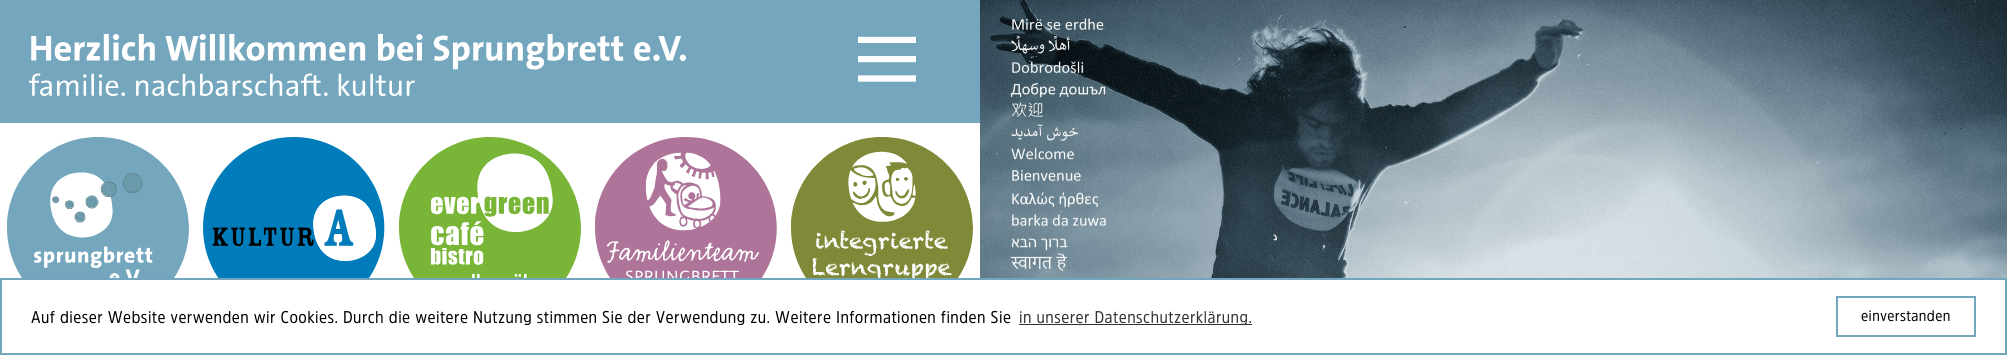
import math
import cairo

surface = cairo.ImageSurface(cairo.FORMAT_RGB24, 2007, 355)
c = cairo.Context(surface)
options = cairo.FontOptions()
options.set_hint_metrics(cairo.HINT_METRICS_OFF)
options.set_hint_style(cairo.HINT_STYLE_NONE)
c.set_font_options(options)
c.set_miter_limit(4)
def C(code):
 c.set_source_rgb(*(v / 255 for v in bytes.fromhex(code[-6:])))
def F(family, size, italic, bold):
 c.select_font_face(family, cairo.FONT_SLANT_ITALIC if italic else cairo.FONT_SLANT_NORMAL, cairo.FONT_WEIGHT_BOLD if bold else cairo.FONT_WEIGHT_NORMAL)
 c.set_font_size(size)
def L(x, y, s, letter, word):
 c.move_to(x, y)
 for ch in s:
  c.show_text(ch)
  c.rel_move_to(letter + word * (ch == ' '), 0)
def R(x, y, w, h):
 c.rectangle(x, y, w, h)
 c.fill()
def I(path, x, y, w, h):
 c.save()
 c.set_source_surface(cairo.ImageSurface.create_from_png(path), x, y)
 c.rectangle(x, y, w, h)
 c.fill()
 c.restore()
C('ffffff')
c.paint()
C('74a6bd')
R(0,0,980,123)
I('1.png',29,34,657,62)
I('2.png',858,36,58,46)
I('3.png',7,137,182,141)
I('4.png',203,137,182,141)
I('5.png',399,137,182,141)
I('6.png',595,137,182,141)
I('7.png',791,137,182,141)
I('8.png',980,0,1027,278)
c.rectangle(1,279,2005,75)
C('72a6be')
c.stroke()
F('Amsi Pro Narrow',17,0,0)
C('000000')
L(31,323,'Auf dieser Website verwenden wir Cookies. Durch die weitere Nutzung stimmen Sie der Verwendung zu. Weitere Informationen finden Sie',.45,0)
C('333333')
R(1019,324,233,1)
L(1019,323,'in unserer Datenschutzerklärung.',.45,0)
c.rectangle(1837,297,138,39)
C('72a6be')
c.stroke()
F('Amsi Pro Narrow',15.25,0,0)
C('000000')
L(1861,321,'einverstanden',.4,0)
surface.write_to_png('o.png')
